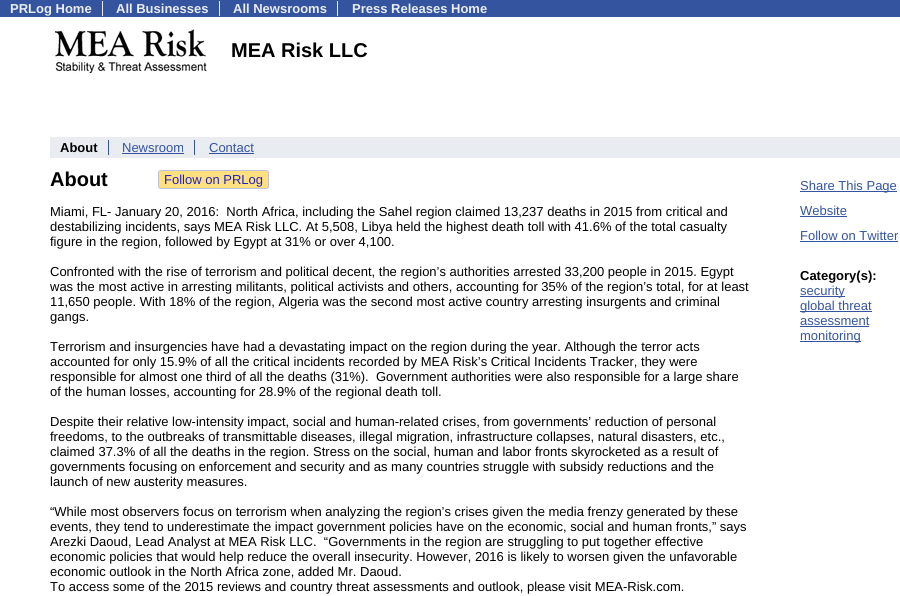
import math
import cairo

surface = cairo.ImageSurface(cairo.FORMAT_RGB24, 900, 596)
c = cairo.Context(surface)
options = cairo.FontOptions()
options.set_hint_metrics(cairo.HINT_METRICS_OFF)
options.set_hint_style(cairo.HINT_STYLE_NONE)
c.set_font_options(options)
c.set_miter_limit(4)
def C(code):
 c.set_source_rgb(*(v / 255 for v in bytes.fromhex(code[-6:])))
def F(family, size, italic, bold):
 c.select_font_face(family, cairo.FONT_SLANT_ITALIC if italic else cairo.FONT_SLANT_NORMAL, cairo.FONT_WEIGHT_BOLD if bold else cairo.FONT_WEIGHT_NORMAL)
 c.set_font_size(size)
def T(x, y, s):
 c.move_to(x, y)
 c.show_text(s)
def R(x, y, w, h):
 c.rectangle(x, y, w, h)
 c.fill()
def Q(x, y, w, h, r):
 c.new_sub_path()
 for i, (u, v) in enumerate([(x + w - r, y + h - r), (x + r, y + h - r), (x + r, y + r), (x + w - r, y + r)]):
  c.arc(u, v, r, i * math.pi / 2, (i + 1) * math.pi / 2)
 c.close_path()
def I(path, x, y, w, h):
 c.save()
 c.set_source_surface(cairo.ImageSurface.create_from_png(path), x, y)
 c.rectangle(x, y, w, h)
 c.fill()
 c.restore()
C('ffffff')
c.paint()
C('3454a0')
R(0,0,900,17)
C('e9edf2')
R(102,1,1,15)
F('Liberation Sans',13,0,1)
T(10,13,'PRLog Home')
R(219,1,1,15)
T(116,13,'All Businesses')
R(337,1,1,15)
T(233,13,'All Newsrooms')
T(352,13,'Press Releases Home')
I('1.png',55,29,152,44)
F('Liberation Sans',20,0,1)
C('000000')
T(231,57,'MEA Risk LLC')
C('e9edf2')
R(50,137,850,21)
C('3454a0')
R(108,140,1,15)
F('Liberation Sans',13,0,1)
C('000000')
T(60,152,'About')
C('3454a0')
R(194,140,1,15)
F('Liberation Sans',13,0,0)
T(122,152,'Newsroom')
R(122,153,62,1)
T(209,152,'Contact')
R(209,153,45,1)
F('Liberation Sans',20,0,1)
C('000000')
T(50,186,'About')
C('ffe080')
Q(158.5,170.5,110,18,2.5)
c.fill_preserve()
C('c0c0e0')
c.set_line_width(1)
c.stroke()
F('Liberation Sans',13,0,0)
C('2020c0')
T(164,184,'Follow on PRLog')
C('000000')
T(50,216,'Miami, FL- January 20, 2016:  North Africa, including the Sahel region claimed 13,237 deaths in 2015 from critical and')
T(50,231,'destabilizing incidents, says MEA Risk LLC. At 5,508, Libya held the highest death toll with 41.6% of the total casualty')
T(50,246,'figure in the region, followed by Egypt at 31% or over 4,100.')
T(50,276,'Confronted with the rise of terrorism and political decent, the region’s authorities arrested 33,200 people in 2015. Egypt')
T(50,291,'was the most active in arresting militants, political activists and others, accounting for 35% of the region’s total, for at least')
T(50,306,'11,650 people. With 18% of the region, Algeria was the second most active country arresting insurgents and criminal')
T(50,321,'gangs.')
T(50,351,'Terrorism and insurgencies have had a devastating impact on the region during the year. Although the terror acts')
T(50,366,'accounted for only 15.9% of all the critical incidents recorded by MEA Risk’s Critical Incidents Tracker, they were')
T(50,381,'responsible for almost one third of all the deaths (31%).  Government authorities were also responsible for a large share')
T(50,396,'of the human losses, accounting for 28.9% of the regional death toll.')
T(50,426,'Despite their relative low-intensity impact, social and human-related crises, from governments’ reduction of personal')
T(50,441,'freedoms, to the outbreaks of transmittable diseases, illegal migration, infrastructure collapses, natural disasters, etc.,')
T(50,456,'claimed 37.3% of all the deaths in the region. Stress on the social, human and labor fronts skyrocketed as a result of')
T(50,471,'governments focusing on enforcement and security and as many countries struggle with subsidy reductions and the')
T(50,486,'launch of new austerity measures.')
T(50,516,'“While most observers focus on terrorism when analyzing the region’s crises given the media frenzy generated by these')
T(50,531,'events, they tend to underestimate the impact government policies have on the economic, social and human fronts,” says')
T(50,546,'Arezki Daoud, Lead Analyst at MEA Risk LLC.  “Governments in the region are struggling to put together effective')
T(50,561,'economic policies that would help reduce the overall insecurity. However, 2016 is likely to worsen given the unfavorable')
T(50,576,'economic outlook in the North Africa zone, added Mr. Daoud.')
T(50,591,'To access some of the 2015 reviews and country threat assessments and outlook, please visit MEA-Risk.com.')
C('3454a0')
R(800,191,97,1)
T(800,190,'Share This Page')
T(800,215,'Website')
R(800,216,47,1)
T(800,240,'Follow on Twitter')
R(800,241,98,1)
F('Liberation Sans',13,0,1)
C('000000')
T(800,280,'Category(s):')
C('3454a0')
R(800,296,45,1)
F('Liberation Sans',13,0,0)
T(800,295,'security')
R(800,311,72,1)
T(800,310,'global threat')
T(800,325,'assessment')
R(800,326,69,1)
R(800,341,61,1)
T(800,340,'monitoring')
surface.write_to_png('o.png')
